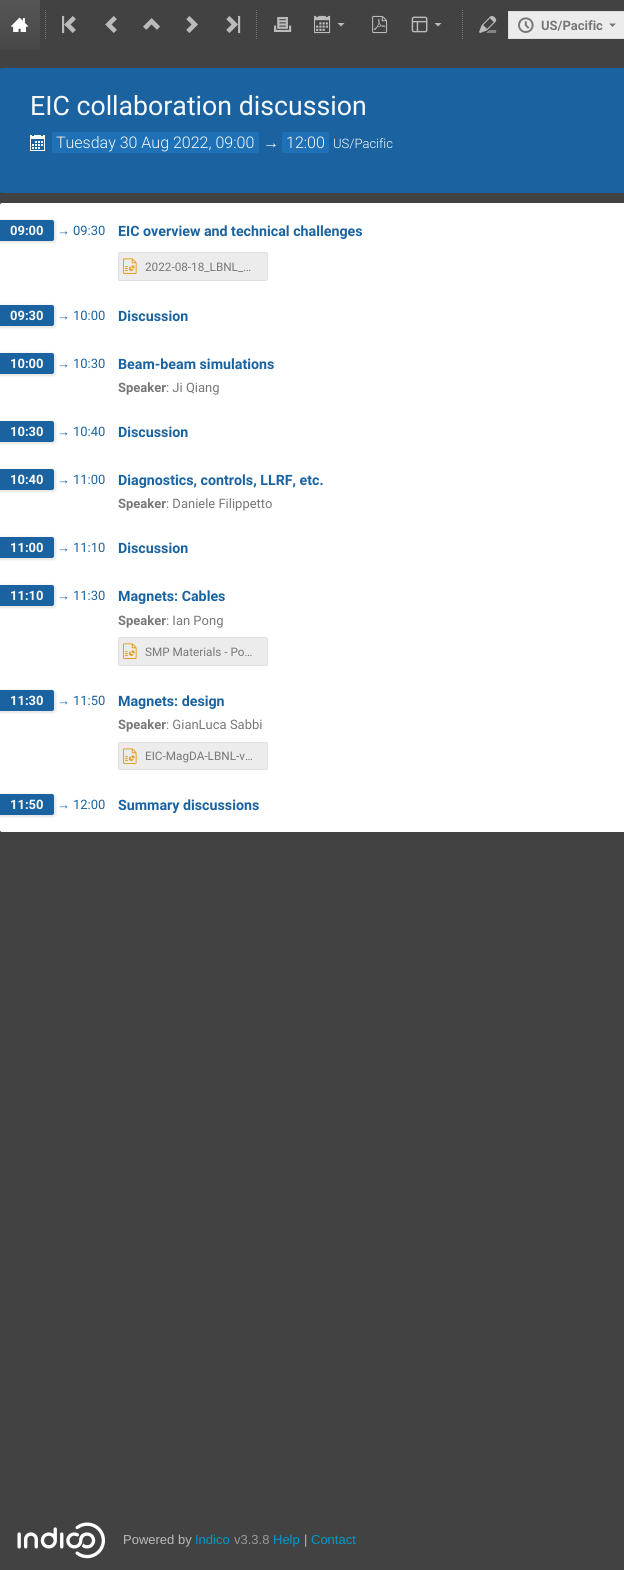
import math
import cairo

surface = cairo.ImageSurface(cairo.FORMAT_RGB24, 624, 1570)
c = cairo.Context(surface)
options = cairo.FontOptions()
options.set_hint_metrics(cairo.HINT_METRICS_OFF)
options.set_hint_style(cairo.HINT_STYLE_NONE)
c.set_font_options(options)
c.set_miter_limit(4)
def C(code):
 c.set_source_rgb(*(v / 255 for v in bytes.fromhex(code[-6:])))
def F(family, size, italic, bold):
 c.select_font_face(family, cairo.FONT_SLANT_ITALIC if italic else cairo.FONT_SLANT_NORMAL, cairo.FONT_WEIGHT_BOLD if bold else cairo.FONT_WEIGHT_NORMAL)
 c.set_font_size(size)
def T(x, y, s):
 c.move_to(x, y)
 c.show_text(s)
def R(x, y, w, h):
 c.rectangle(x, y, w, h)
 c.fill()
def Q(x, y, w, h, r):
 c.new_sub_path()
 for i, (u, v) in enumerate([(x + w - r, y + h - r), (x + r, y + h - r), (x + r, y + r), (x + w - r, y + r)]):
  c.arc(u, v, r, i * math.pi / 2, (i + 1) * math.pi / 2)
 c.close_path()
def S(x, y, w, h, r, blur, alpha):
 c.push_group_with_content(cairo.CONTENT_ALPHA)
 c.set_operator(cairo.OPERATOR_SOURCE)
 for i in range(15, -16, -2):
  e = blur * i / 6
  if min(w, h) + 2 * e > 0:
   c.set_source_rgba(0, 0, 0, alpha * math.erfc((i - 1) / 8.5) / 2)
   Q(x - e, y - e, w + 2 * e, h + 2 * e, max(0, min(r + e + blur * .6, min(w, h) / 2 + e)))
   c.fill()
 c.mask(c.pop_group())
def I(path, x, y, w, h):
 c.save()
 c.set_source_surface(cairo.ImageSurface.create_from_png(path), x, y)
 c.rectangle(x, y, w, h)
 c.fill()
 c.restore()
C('424242')
c.paint()
gradient = cairo.LinearGradient(20,0,20,50)
gradient.add_color_stop_rgba(0,0.333,0.333,0.333,1)
gradient.add_color_stop_rgba(1,0.282,0.282,0.282,1)
c.set_source(gradient)
R(0,0,40,50)
I('1.png',11,17,18,15)
c.new_path()
c.move_to(45.5,10)
c.line_to(45.5,40)
C('777777')
c.set_line_width(1)
c.set_dash([1,1])
c.stroke()
I('2.png',62,15,14,19)
I('3.png',105,16,12,17)
I('4.png',143,18,17,12)
I('5.png',186,16,12,17)
I('6.png',226,15,15,19)
c.new_path()
c.move_to(256.5,10)
c.line_to(256.5,40)
c.stroke()
I('7.png',274,17,18,15)
I('8.png',314,15,17,19)
C('bbbbbb')
c.new_path()
c.move_to(337.5,23)
c.line_to(341,26.5)
c.line_to(344.5,23)
c.close_path()
c.fill()
I('9.png',372,15,16,19)
I('10.png',411,16,17,17)
c.new_path()
c.move_to(434.5,23)
c.line_to(438,26.5)
c.line_to(441.5,23)
c.close_path()
c.fill()
c.new_path()
c.move_to(462.5,10)
c.line_to(462.5,40)
C('777777')
c.stroke()
I('11.png',479,16,18,17)
C('ececec')
R(509,12,115,26)
C('dfdfdf')
R(508,11,116,1)
R(508,38,116,1)
R(508,11,1,28)
I('12.png',518,17,16,16)
F('Roboto',13,0,1)
C('777777')
T(541,30,'US/Pacific')
c.new_path()
c.move_to(609,23.5)
c.line_to(612.5,27)
c.line_to(616,23.5)
c.close_path()
c.fill()
C('1a63a0')
Q(0,68,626,125,2)
c.fill()
F('Roboto',26.7,0,0)
C('f9f9f9')
T(30,115,'EIC collaboration discussion')
I('13.png',30,135,15,16)
C('1e71b6')
Q(52,132,207,21,2)
c.fill()
F('Roboto Light',16,0,0)
C('f9f9f9')
T(56,148,'Tuesday 30 Aug 2022, 09:00')
F('Liberation Sans',16,0,0)
T(263,148,'→')
C('1e71b6')
Q(282,132,47,21,2)
c.fill()
F('Roboto Light',16,0,0)
C('f9f9f9')
T(286,148,'12:00')
F('Roboto Light',13,0,0)
T(333,148,'US/Pacific')
C('ffffff')
Q(0,203,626,629,2)
c.fill()
C('000000')
S(-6,220,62,23,3,1,.1)
C('1a63a0')
c.new_path()
c.move_to(-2,220)
c.line_to(52,220)
c.curve_to(53,220,54,221,54,222)
c.line_to(54,239)
c.curve_to(54,240,53,241,52,241)
c.line_to(-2,241)
c.close_path()
c.fill()
F('Roboto',13,0,1)
C('f9f9f9')
T(10,235,'09:00')
F('Liberation Sans',13,0,0)
C('1a63a0')
T(57,235,'→')
F('Roboto',13,0,0)
T(73,235,'09:30')
F('Roboto',14.25,0,1)
T(118,236,'EIC overview and technical challenges')
C('ececec')
Q(118.5,252.5,149,28,1.5)
c.fill_preserve()
C('dfdfdf')
c.set_dash([])
c.stroke()
I('14.png',122,258,15,16)
F('Roboto',11.75,0,0)
C('777777')
T(145,271,'2022-08-18_LBNL_…')
C('000000')
S(-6,305,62,23,3,1,.1)
C('1a63a0')
c.new_path()
c.move_to(-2,305)
c.line_to(52,305)
c.curve_to(53,305,54,306,54,307)
c.line_to(54,324)
c.curve_to(54,325,53,326,52,326)
c.line_to(-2,326)
c.close_path()
c.fill()
F('Roboto',13,0,1)
C('f9f9f9')
T(10,320,'09:30')
F('Liberation Sans',13,0,0)
C('1a63a0')
T(57,320,'→')
F('Roboto',13,0,0)
T(73,320,'10:00')
F('Roboto',14.25,0,1)
T(118,321,'Discussion')
C('000000')
S(-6,353,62,23,3,1,.1)
C('1a63a0')
c.new_path()
c.move_to(-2,353)
c.line_to(52,353)
c.curve_to(53,353,54,354,54,355)
c.line_to(54,372)
c.curve_to(54,373,53,374,52,374)
c.line_to(-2,374)
c.close_path()
c.fill()
F('Roboto',13,0,1)
C('f9f9f9')
T(10,368,'10:00')
F('Liberation Sans',13,0,0)
C('1a63a0')
T(57,368,'→')
F('Roboto',13,0,0)
T(73,368,'10:30')
F('Roboto',14.25,0,1)
T(118,369,'Beam-beam simulations')
F('Roboto',13,0,1)
C('777777')
T(118,392,'Speaker')
F('Roboto',13,0,0)
T(166,392,': Ji Qiang')
C('000000')
S(-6,421,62,23,3,1,.1)
C('1a63a0')
c.new_path()
c.move_to(-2,421)
c.line_to(52,421)
c.curve_to(53,421,54,422,54,423)
c.line_to(54,440)
c.curve_to(54,441,53,442,52,442)
c.line_to(-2,442)
c.close_path()
c.fill()
F('Roboto',13,0,1)
C('f9f9f9')
T(10,436,'10:30')
F('Liberation Sans',13,0,0)
C('1a63a0')
T(57,436,'→')
F('Roboto',13,0,0)
T(73,436,'10:40')
F('Roboto',14.25,0,1)
T(118,437,'Discussion')
C('000000')
S(-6,469,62,23,3,1,.1)
C('1a63a0')
c.new_path()
c.move_to(-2,469)
c.line_to(52,469)
c.curve_to(53,469,54,470,54,471)
c.line_to(54,488)
c.curve_to(54,489,53,490,52,490)
c.line_to(-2,490)
c.close_path()
c.fill()
F('Roboto',13,0,1)
C('f9f9f9')
T(10,484,'10:40')
F('Liberation Sans',13,0,0)
C('1a63a0')
T(57,484,'→')
F('Roboto',13,0,0)
T(73,484,'11:00')
F('Roboto',14.25,0,1)
T(118,485,'Diagnostics, controls, LLRF, etc.')
F('Roboto',13,0,1)
C('777777')
T(118,508,'Speaker')
F('Roboto',13,0,0)
T(166,508,': Daniele Filippetto')
C('000000')
S(-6,537,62,23,3,1,.1)
C('1a63a0')
c.new_path()
c.move_to(-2,537)
c.line_to(52,537)
c.curve_to(53,537,54,538,54,539)
c.line_to(54,556)
c.curve_to(54,557,53,558,52,558)
c.line_to(-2,558)
c.close_path()
c.fill()
F('Roboto',13,0,1)
C('f9f9f9')
T(10,552,'11:00')
F('Liberation Sans',13,0,0)
C('1a63a0')
T(57,552,'→')
F('Roboto',13,0,0)
T(73,552,'11:10')
F('Roboto',14.25,0,1)
T(118,553,'Discussion')
C('000000')
S(-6,585,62,23,3,1,.1)
C('1a63a0')
c.new_path()
c.move_to(-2,585)
c.line_to(52,585)
c.curve_to(53,585,54,586,54,587)
c.line_to(54,604)
c.curve_to(54,605,53,606,52,606)
c.line_to(-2,606)
c.close_path()
c.fill()
F('Roboto',13,0,1)
C('f9f9f9')
T(10,600,'11:10')
F('Liberation Sans',13,0,0)
C('1a63a0')
T(57,600,'→')
F('Roboto',13,0,0)
T(73,600,'11:30')
F('Roboto',14.25,0,1)
T(118,601,'Magnets: Cables')
F('Roboto',13,0,1)
C('777777')
T(118,625,'Speaker')
F('Roboto',13,0,0)
T(166,625,': Ian Pong')
C('ececec')
Q(118.5,637.5,149,28,1.5)
c.fill_preserve()
C('dfdfdf')
c.stroke()
I('14.png',122,643,15,16)
F('Roboto',11.75,0,0)
C('777777')
T(145,656,'SMP Materials - Po…')
C('000000')
S(-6,690,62,23,3,1,.1)
C('1a63a0')
c.new_path()
c.move_to(-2,690)
c.line_to(52,690)
c.curve_to(53,690,54,691,54,692)
c.line_to(54,709)
c.curve_to(54,710,53,711,52,711)
c.line_to(-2,711)
c.close_path()
c.fill()
F('Roboto',13,0,1)
C('f9f9f9')
T(10,705,'11:30')
F('Liberation Sans',13,0,0)
C('1a63a0')
T(57,705,'→')
F('Roboto',13,0,0)
T(73,705,'11:50')
F('Roboto',14.25,0,1)
T(118,706,'Magnets: design')
F('Roboto',13,0,1)
C('777777')
T(118,729,'Speaker')
F('Roboto',13,0,0)
T(166,729,': GianLuca Sabbi')
C('ececec')
Q(118.5,742.5,149,27,1.5)
c.fill_preserve()
C('dfdfdf')
c.stroke()
I('14.png',122,748,15,16)
F('Roboto',11.75,0,0)
C('777777')
T(145,760,'EIC-MagDA-LBNL-v…')
C('000000')
S(-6,794,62,23,3,1,.1)
C('1a63a0')
c.new_path()
c.move_to(-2,794)
c.line_to(52,794)
c.curve_to(53,794,54,795,54,796)
c.line_to(54,813)
c.curve_to(54,814,53,815,52,815)
c.line_to(-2,815)
c.close_path()
c.fill()
F('Roboto',13,0,1)
C('f9f9f9')
T(10,809,'11:50')
F('Liberation Sans',13,0,0)
C('1a63a0')
T(57,809,'→')
F('Roboto',13,0,0)
T(73,809,'12:00')
F('Roboto',14.25,0,1)
T(118,810,'Summary discussions')
I('15.png',17,1522,88,37)
F('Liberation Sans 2',13,0,0)
C('bbbbbb')
T(123,1544,'Powered by')
C('0099cc')
T(195,1544,'Indico')
C('999999')
T(234,1544,'v3.3.8')
C('0099cc')
T(273,1544,'Help')
C('bbbbbb')
T(304,1544,'|')
C('0099cc')
T(311,1544,'Contact')
surface.write_to_png('o.png')
